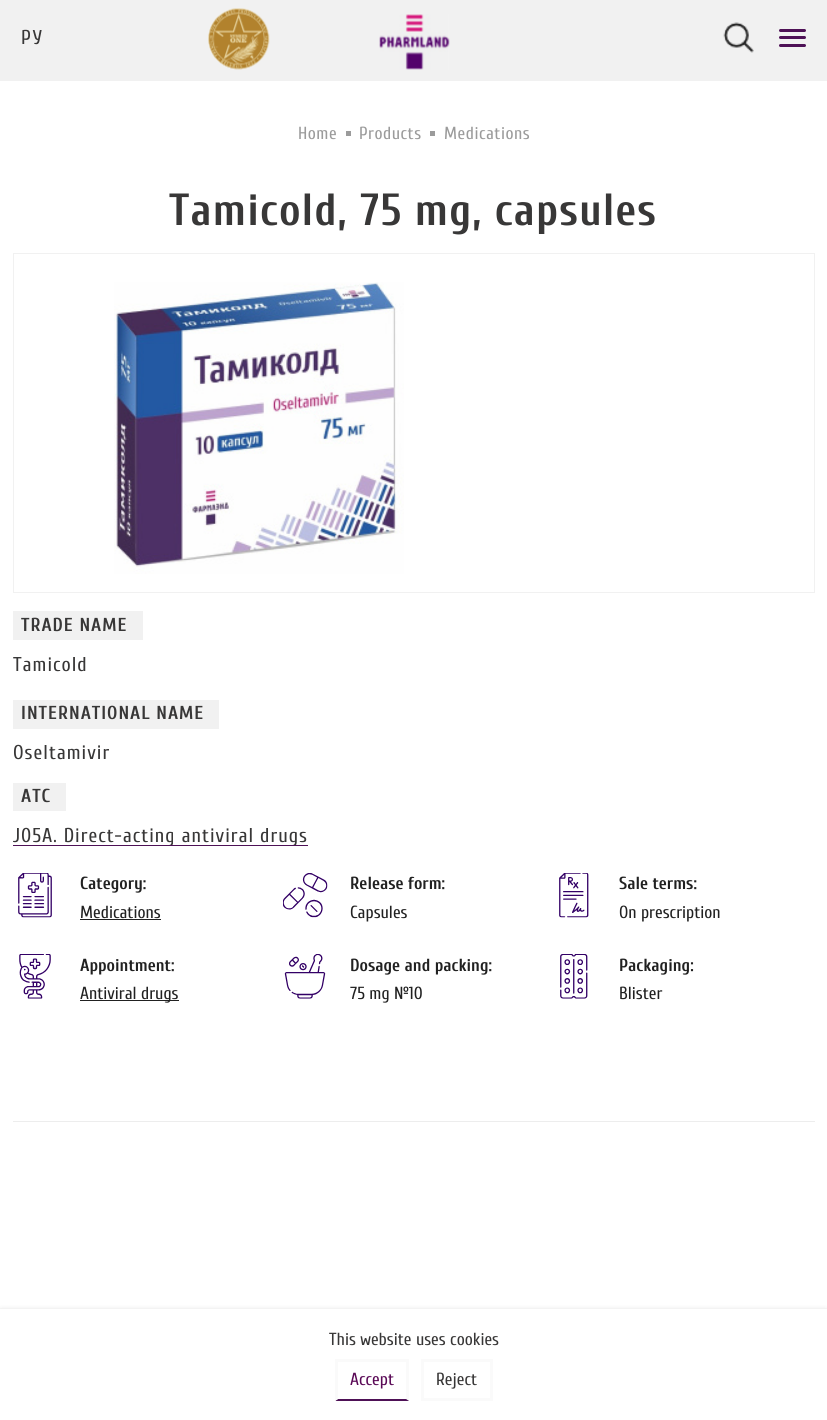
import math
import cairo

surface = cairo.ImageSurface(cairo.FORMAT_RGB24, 827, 1420)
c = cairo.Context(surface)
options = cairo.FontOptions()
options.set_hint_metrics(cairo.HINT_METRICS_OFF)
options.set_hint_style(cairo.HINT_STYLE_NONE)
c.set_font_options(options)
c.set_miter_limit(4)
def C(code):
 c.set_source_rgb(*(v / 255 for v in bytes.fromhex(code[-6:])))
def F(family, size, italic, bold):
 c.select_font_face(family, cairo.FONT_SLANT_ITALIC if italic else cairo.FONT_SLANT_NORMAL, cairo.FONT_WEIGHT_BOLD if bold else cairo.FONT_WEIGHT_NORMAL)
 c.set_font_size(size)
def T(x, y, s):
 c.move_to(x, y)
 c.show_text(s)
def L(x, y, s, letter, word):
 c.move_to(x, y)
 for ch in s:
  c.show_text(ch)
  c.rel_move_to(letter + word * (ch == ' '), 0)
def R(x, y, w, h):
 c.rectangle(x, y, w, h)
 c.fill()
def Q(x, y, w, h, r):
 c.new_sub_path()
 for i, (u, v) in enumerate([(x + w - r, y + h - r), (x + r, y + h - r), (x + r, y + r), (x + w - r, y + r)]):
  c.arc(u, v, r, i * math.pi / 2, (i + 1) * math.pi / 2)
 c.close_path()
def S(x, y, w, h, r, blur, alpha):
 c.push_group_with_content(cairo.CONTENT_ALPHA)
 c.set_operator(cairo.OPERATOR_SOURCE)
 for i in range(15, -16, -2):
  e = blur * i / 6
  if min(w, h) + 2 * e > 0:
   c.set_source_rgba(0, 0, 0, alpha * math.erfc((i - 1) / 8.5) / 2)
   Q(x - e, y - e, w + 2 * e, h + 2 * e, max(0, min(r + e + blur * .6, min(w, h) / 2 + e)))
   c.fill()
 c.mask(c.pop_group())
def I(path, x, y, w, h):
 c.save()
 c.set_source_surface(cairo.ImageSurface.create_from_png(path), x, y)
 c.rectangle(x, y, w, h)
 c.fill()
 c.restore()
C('ffffff')
c.paint()
C('f1f1f1')
R(0,0,827,81)
F('Cuprum',20,0,0)
C('383737')
L(21,44,'РУ',2,0)
I('1.png',208,8,62,62)
I('2.png',379,14,71,56)
I('3.png',723,22,31,31)
C('4e1156')
Q(779,29,27,3,1.5)
c.fill()
Q(779,36,27,3,1.5)
c.fill()
Q(779,44,27,3,1.5)
c.fill()
F('Cuprum',17.5,0,0)
C('9b9b9b')
L(298,139,'Home',.5,0)
R(346,131,5,5)
L(359,139,'Products',.5,0)
R(430,131,5,5)
L(444,139,'Medications',.5,0)
F('Cuprum',45,0,1)
C('383737')
L(169,225,'Tamicold, 75 mg, capsules',1.1,0)
c.rectangle(13.5,253.5,801,339)
C('f1f1f1')
c.set_line_width(1)
c.stroke()
I('4.png',114,282,290,292)
R(13,611,130,29)
F('Cuprum',18.75,0,1)
C('383737')
L(21,631,'TRADE NAME',1,0)
F('Cuprum',20,0,0)
L(13,671,'Tamicold',1,0)
C('f1f1f1')
R(13,700,206,29)
F('Cuprum',18.75,0,1)
C('383737')
L(21,719,'INTERNATIONAL NAME',1,0)
F('Cuprum',20,0,0)
L(13,759,'Oseltamivir',1,0)
C('f1f1f1')
R(13,783,53,28)
F('Cuprum',18.75,0,1)
C('383737')
L(21,802,'ATC',1,0)
c.save()
c.rectangle(13,783,802,63)
c.clip()
F('Cuprum',20,0,0)
L(13,842,'J05A. Direct-acting antiviral drugs',1,0)
c.restore()
C('4e1156')
R(13,845,295,1)
I('5.png',18,873,34,45)
F('Cuprum',17.5,0,1)
C('212121')
T(80,889,'Category:')
F('Cuprum',17.5,0,0)
T(80,918,'Medications')
R(80,919,81,1)
I('6.png',283,873,45,45)
F('Cuprum',17.5,0,1)
T(350,889,'Release form:')
F('Cuprum',17.5,0,0)
T(350,918,'Capsules')
I('7.png',559,873,30,45)
F('Cuprum',17.5,0,1)
T(619,889,'Sale terms:')
F('Cuprum',17.5,0,0)
T(619,918,'On prescription')
I('8.png',19,954,32,45)
F('Cuprum',17.5,0,1)
T(80,971,'Appointment:')
R(80,1000,99,1)
F('Cuprum',17.5,0,0)
T(80,999,'Antiviral drugs')
I('9.png',284,954,42,45)
F('Cuprum',17.5,0,1)
T(350,971,'Dosage and packing:')
F('Cuprum',17.5,0,0)
T(350,999,'75 mg №10')
I('10.png',560,954,28,45)
F('Cuprum',17.5,0,1)
T(619,971,'Packaging:')
F('Cuprum',17.5,0,0)
T(619,999,'Blister')
C('ededed')
R(13,1121,802,1)
C('000000')
S(1,1315,825,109,0,4,1)
C('ffffff')
R(0,1309,827,111)
C('383737')
T(329,1345,'This website uses cookies')
C('fafafa')
R(335,1359,74,3)
c.new_path()
c.move_to(409,1359)
c.line_to(409,1401)
c.line_to(406,1399)
c.line_to(406,1361)
c.close_path()
c.fill()
C('4e1156')
c.new_path()
c.move_to(409,1401)
c.line_to(335,1401)
c.line_to(338,1399)
c.line_to(406,1399)
c.close_path()
c.fill()
C('fafafa')
c.new_path()
c.move_to(335,1401)
c.line_to(335,1359)
c.line_to(338,1361)
c.line_to(338,1399)
c.close_path()
c.fill()
C('5a0956')
T(350,1385,'Accept')
c.rectangle(422.5,1360.5,69,39)
C('fafafa')
c.set_line_width(3)
c.stroke()
C('383737')
T(436,1385,'Reject')
surface.write_to_png('o.png')
